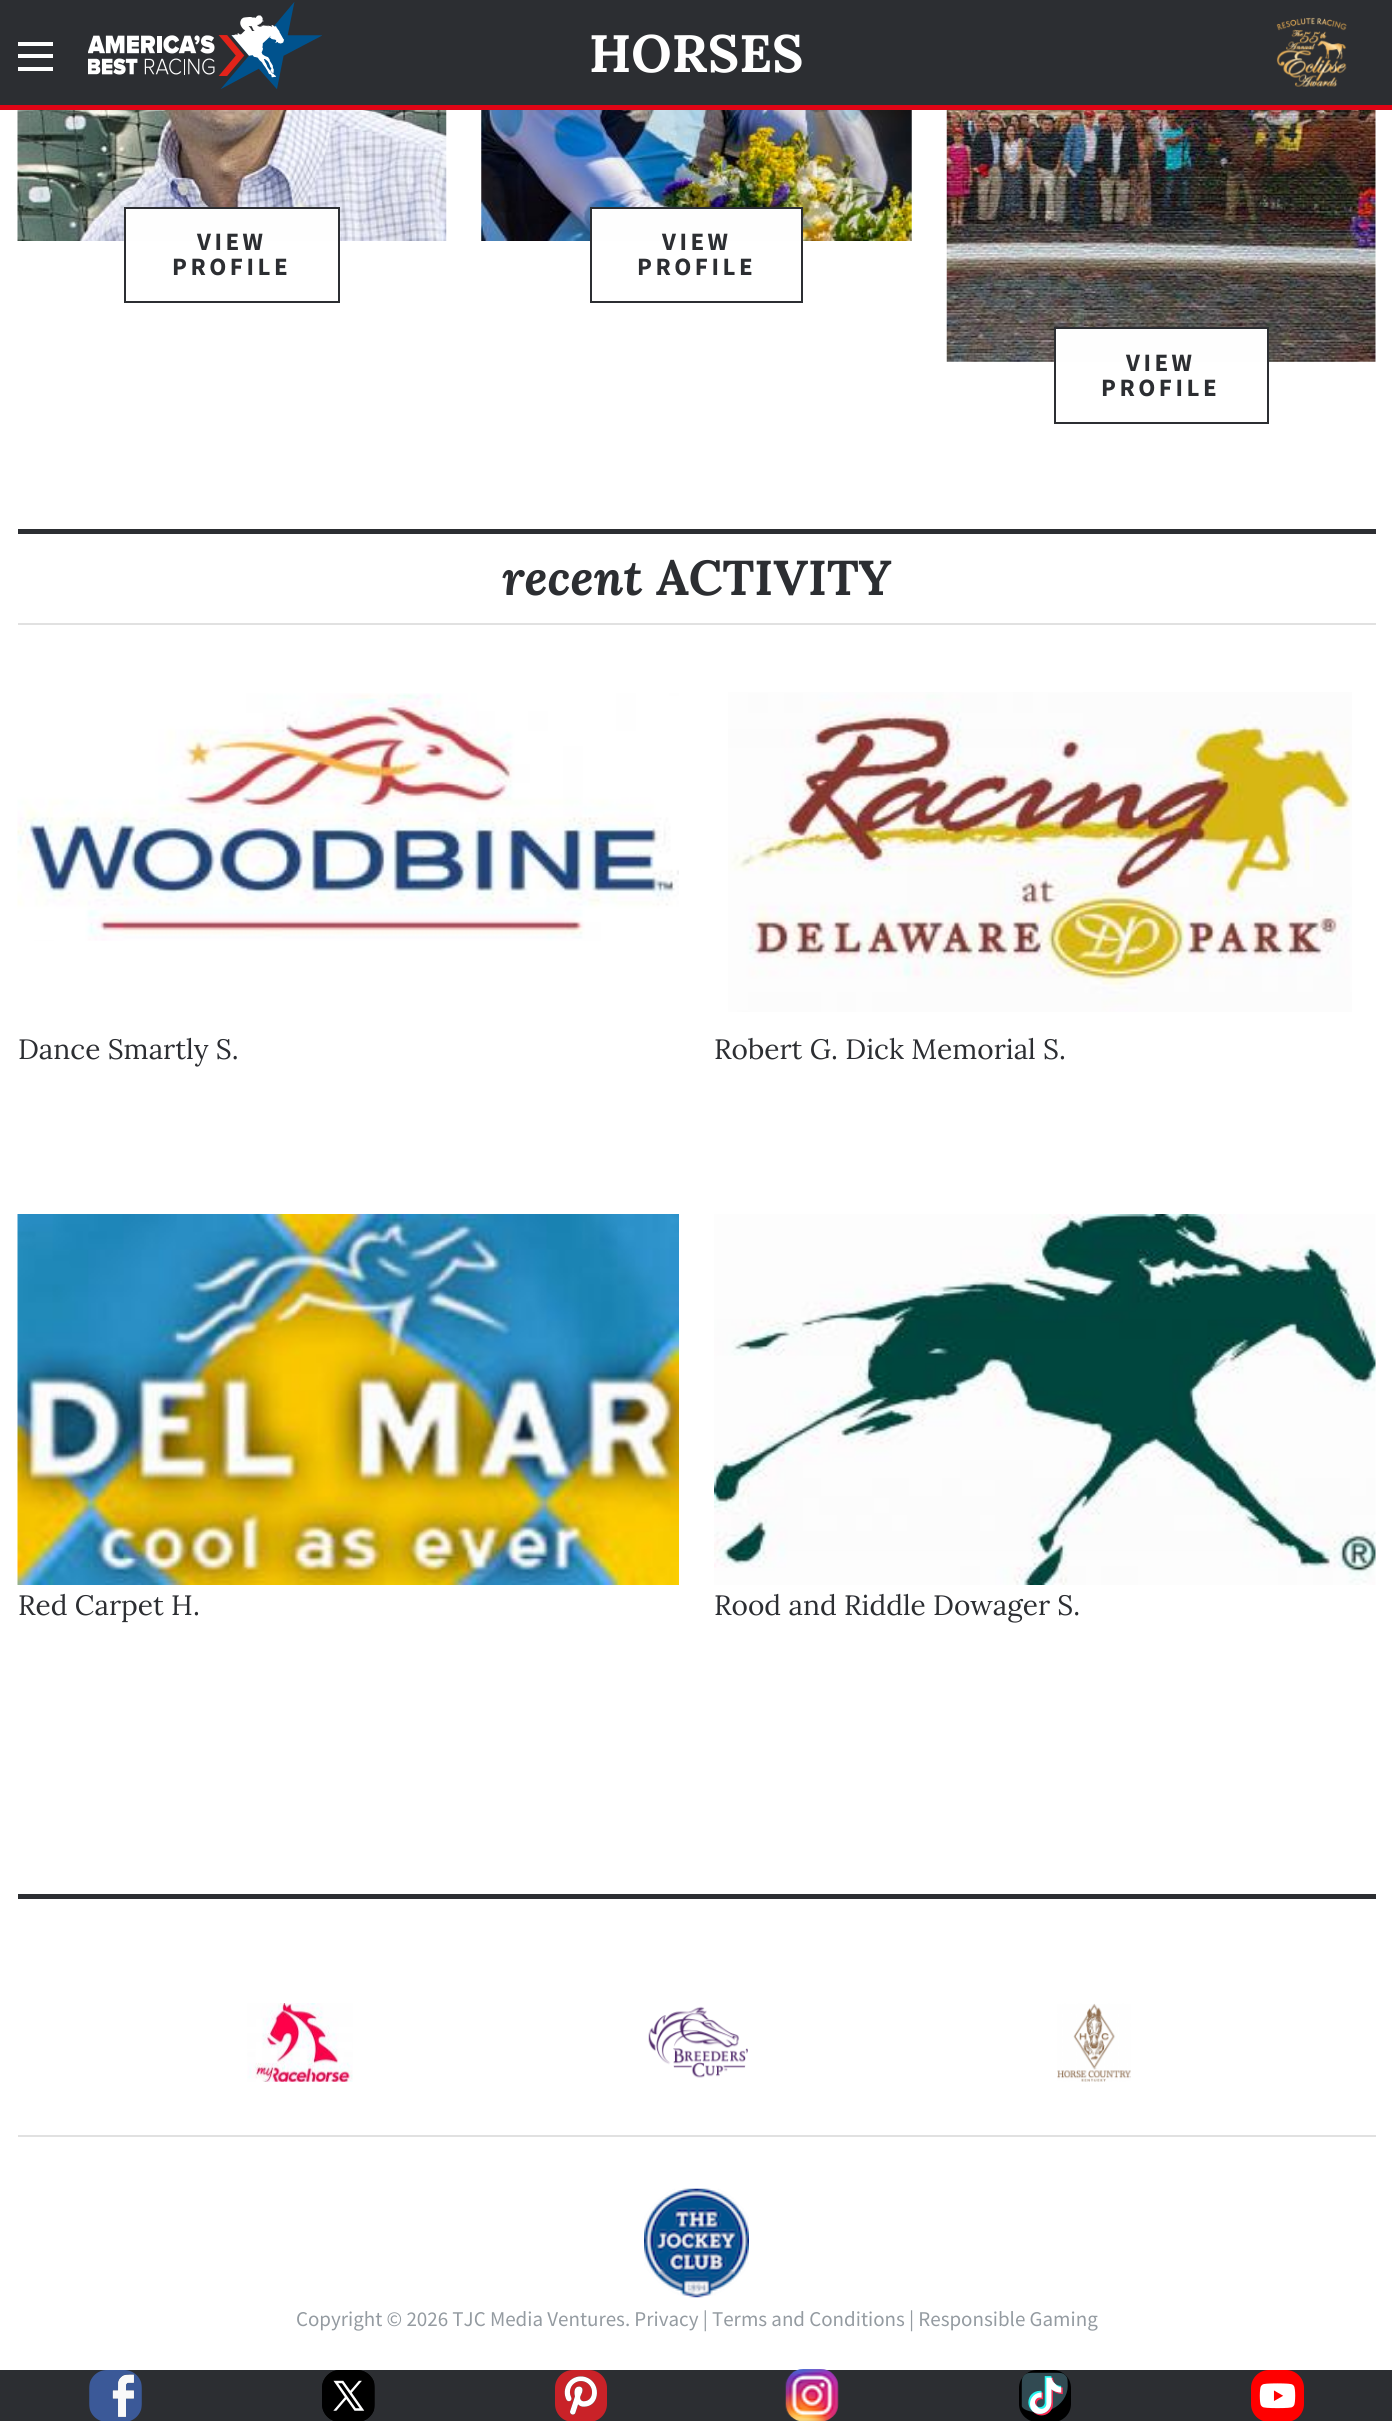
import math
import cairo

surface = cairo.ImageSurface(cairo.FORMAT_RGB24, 1392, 2421)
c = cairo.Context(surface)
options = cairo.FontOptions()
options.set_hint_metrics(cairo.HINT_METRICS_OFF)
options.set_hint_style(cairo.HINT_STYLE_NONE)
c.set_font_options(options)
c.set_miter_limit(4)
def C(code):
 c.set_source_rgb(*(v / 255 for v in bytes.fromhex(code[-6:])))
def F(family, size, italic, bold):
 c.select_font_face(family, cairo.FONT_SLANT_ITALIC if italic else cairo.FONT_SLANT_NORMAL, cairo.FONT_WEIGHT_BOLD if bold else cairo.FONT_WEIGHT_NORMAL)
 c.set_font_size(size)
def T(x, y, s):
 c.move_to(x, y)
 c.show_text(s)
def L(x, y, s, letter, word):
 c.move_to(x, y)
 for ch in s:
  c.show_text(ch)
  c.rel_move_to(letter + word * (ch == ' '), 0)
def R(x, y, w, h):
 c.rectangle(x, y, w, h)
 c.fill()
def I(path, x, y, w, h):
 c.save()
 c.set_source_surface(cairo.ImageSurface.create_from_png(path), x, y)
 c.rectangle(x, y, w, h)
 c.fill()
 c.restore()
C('ffffff')
c.paint()
C('2c2e32')
R(0,0,1392,105)
C('e00415')
R(0,105,1392,5)
C('fefefe')
R(18,67,35,4)
R(18,54,35,4)
R(18,42,35,4)
I('1.png',88,2,234,87)
F('Lora',52.5,0,1)
T(589,72,'HORSES')
I('2.png',1276,17,71,70)
I('3.png',17,110,430,131)
R(126,209,212,32)
c.rectangle(125,208,214,94)
C('2c2e32')
c.stroke()
F('Source Sans Pro',25,0,1)
L(197,250,'VIEW',3.5,0)
L(172,275,'PROFILE',3.5,0)
I('4.png',481,110,431,131)
C('fefefe')
R(592,209,209,32)
c.rectangle(591,208,211,94)
C('2c2e32')
c.stroke()
L(662,250,'VIEW',3.5,0)
L(637,275,'PROFILE',3.5,0)
I('5.png',946,110,430,252)
C('fefefe')
R(1056,329,211,33)
c.rectangle(1055,328,213,95)
C('2c2e32')
c.stroke()
L(1126,371,'VIEW',3.5,0)
L(1101,396,'PROFILE',3.5,0)
R(18,529,1358,5)
C('e1e1e1')
R(18,623,1358,2)
F('Lora',49,1,1)
C('2c2e32')
T(502,595,'recent')
F('Lora',49,0,1)
T(656,595,'ACTIVITY')
I('6.png',17,693,662,248)
F('Lora',28,0,0)
T(18,1059,'Dance Smartly S.')
I('7.png',728,692,624,320)
T(714,1059,'Robert G. Dick Memorial S.')
I('8.png',17,1214,662,371)
T(18,1615,'Red Carpet H.')
I('9.png',714,1214,662,371)
T(714,1615,'Rood and Riddle Dowager S.')
R(18,1894,1358,5)
I('10.png',247,2003,106,79)
I('11.png',648,2006,100,72)
I('12.png',1057,2003,74,79)
C('e1e1e1')
R(18,2135,1358,2)
I('13.png',644,2188,105,110)
F('Source Sans Pro',21,0,0)
C('949ba1')
T(296,2326,'Copyright © 2026 TJC Media Ventures. Privacy | Terms and Conditions | Responsible Gaming')
C('2c2e32')
R(0,2370,1392,51)
I('14.png',89,2370,53,51)
I('15.png',322,2370,53,51)
I('16.png',555,2370,52,51)
I('17.png',785,2369,54,52)
I('18.png',1019,2370,52,51)
I('19.png',1251,2370,53,51)
surface.write_to_png('o.png')
